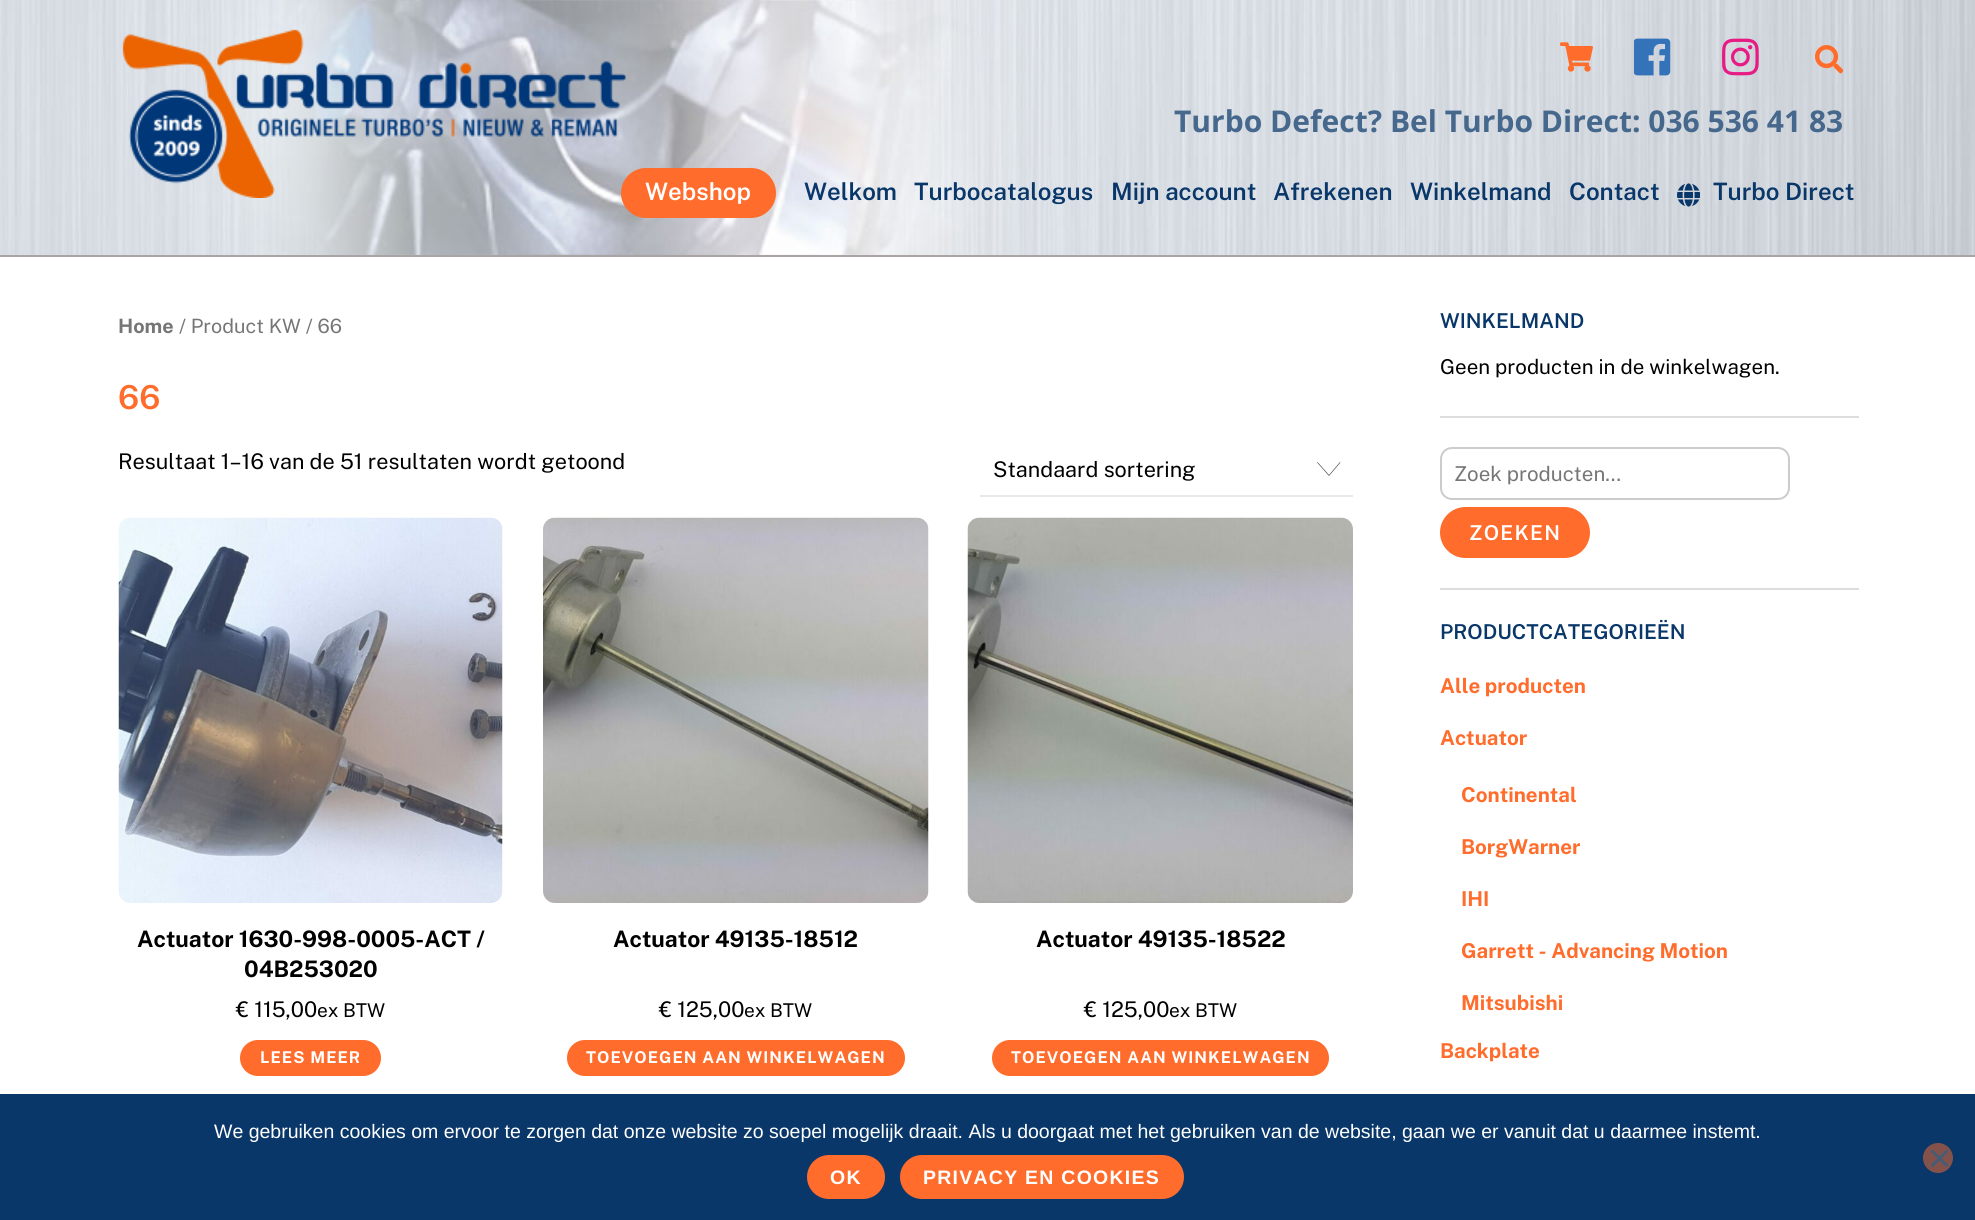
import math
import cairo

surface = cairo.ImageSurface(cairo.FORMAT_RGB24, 1975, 1220)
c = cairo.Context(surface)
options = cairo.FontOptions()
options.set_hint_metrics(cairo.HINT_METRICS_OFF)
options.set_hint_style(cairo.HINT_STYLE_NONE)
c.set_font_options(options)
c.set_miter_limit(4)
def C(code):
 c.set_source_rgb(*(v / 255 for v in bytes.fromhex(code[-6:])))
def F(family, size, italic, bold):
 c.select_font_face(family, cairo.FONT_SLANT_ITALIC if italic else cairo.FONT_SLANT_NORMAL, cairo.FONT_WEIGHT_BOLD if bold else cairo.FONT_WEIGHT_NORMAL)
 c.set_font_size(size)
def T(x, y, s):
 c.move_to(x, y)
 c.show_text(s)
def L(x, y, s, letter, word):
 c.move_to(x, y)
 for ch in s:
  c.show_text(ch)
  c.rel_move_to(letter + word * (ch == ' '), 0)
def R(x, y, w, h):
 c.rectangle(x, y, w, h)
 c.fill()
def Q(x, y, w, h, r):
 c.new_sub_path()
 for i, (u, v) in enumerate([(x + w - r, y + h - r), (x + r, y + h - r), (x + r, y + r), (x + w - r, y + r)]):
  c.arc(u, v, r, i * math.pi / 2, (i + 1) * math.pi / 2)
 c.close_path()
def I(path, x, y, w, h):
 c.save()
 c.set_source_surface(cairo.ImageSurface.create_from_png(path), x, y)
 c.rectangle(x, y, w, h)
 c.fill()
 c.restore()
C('ffffff')
c.paint()
I('1.png',0,0,1975,255)
C('aba4a4')
R(0,255,1975,2)
I('2.png',122,29,504,169)
F('Open Sans',30,0,1)
C('46688d')
T(1174,132,'Turbo Defect? Bel Turbo Direct: 036 536 41 83')
I('3.png',1560,42,33,30)
I('4.png',1634,38,37,38)
I('5.png',1722,38,37,38)
I('6.png',1815,45,28,29)
C('ff6c2b')
Q(621,168,155,50,25)
c.fill()
F('Public Sans SemiBold',24,0,0)
C('ffffff')
T(645,200,'Webshop')
C('093769')
T(804,200,'Welkom')
T(914,200,'Turbocatalogus')
T(1111,200,'Mijn account')
T(1273,200,'Afrekenen')
T(1410,200,'Winkelmand')
T(1569,200,'Contact')
I('7.png',1677,183,23,24)
T(1713,200,'Turbo Direct')
F('Public Sans',19.75,0,1)
C('767676')
T(118,333,'Home')
F('Public Sans',19.75,0,0)
T(179,333,'/ Product KW / 66')
F('Public Sans SemiBold',33,0,0)
C('ff6c2b')
T(118,409,'66')
F('Public Sans',21.6,0,0)
C('000000')
T(118,469,'Resultaat 1–16 van de 51 resultaten wordt getoond')
c.new_path()
c.move_to(1317.5,462.5)
c.line_to(1329,475.5)
c.line_to(1340,462.5)
C('535353')
c.set_line_width(.7)
c.set_line_cap(cairo.LINE_CAP_ROUND)
c.stroke()
C('e9e9e9')
R(980,495,373,2)
C('000000')
T(993,477,'Standaard sortering')
I('8.png',118,517,385,386)
F('Public Sans',22.7,0,1)
T(137,947,'Actuator 1630-998-0005-ACT /')
T(244,977,'04B253020')
F('Public Sans',21.6,0,0)
T(236,1017,'€ 115,00')
F('Public Sans',19,0,0)
T(317,1017,'ex BTW')
C('ff6c2b')
Q(240,1040,141,36,18)
c.fill()
F('Public Sans',16.25,0,1)
C('ffffff')
L(260,1063,'LEES MEER',1.05,0)
I('9.png',543,517,386,386)
F('Public Sans',22.7,0,1)
C('000000')
T(613,947,'Actuator 49135-18512')
F('Public Sans',21.6,0,0)
T(659,1017,'€ 125,00')
F('Public Sans',19,0,0)
T(744,1017,'ex BTW')
C('ff6c2b')
Q(567,1040,338,36,18)
c.fill()
F('Public Sans',16.25,0,1)
C('ffffff')
L(586,1063,'TOEVOEGEN AAN WINKELWAGEN',1.05,0)
I('10.png',967,517,386,386)
F('Public Sans',22.7,0,1)
C('000000')
T(1036,947,'Actuator 49135-18522')
F('Public Sans',21.6,0,0)
T(1084,1017,'€ 125,00')
F('Public Sans',19,0,0)
T(1169,1017,'ex BTW')
C('ff6c2b')
Q(992,1040,337,36,18)
c.fill()
F('Public Sans',16.25,0,1)
C('ffffff')
L(1011,1063,'TOEVOEGEN AAN WINKELWAGEN',1.05,0)
C('dddddd')
R(1440,416,419,2)
F('Public Sans SemiBold',20.5,0,0)
C('093769')
T(1440,328,'WINKELMAND')
F('Public Sans',20.5,0,0)
C('000000')
T(1440,374,'Geen producten in de winkelwagen.')
C('dddddd')
R(1440,588,419,2)
Q(1441,448,348,51,11)
C('cccccc')
c.set_line_width(2)
c.set_line_cap(cairo.LINE_CAP_BUTT)
c.stroke()
C('767676')
T(1454,481,'Zoek producten…')
C('ff6c2b')
Q(1440,507,150,51,25.5)
c.fill()
F('Public Sans SemiBold',20.5,0,0)
C('ffffff')
L(1469,540,'ZOEKEN',1.25,0)
C('093769')
T(1440,639,'PRODUCTCATEGORIEËN')
F('Public Sans',20.5,0,1)
C('ff6c2b')
T(1440,693,'Alle producten')
T(1440,745,'Actuator')
T(1461,802,'Continental')
T(1461,854,'BorgWarner')
T(1461,906,'IHI')
T(1461,958,'Garrett - Advancing Motion')
T(1461,1010,'Mitsubishi')
T(1440,1058,'Backplate')
C('093769')
R(0,1094,1975,126)
F('Liberation Sans',19.5,0,0)
C('ffffff')
T(214,1138,'We gebruiken cookies om ervoor te zorgen dat onze website zo soepel mogelijk draait. Als u doorgaat met het gebruiken van de website, gaan we er vanuit dat u daarmee instemt.')
C('84524a')
c.new_path()
c.arc(1938,1158,15,0,2 * math.pi)
c.fill()
C('455c75')
c.new_path()
c.move_to(1946.5,1149.5)
c.line_to(1948.5,1151.5)
c.line_to(1932.5,1167.5)
c.line_to(1930.5,1165)
c.close_path()
c.fill()
c.new_path()
c.move_to(1930.5,1151.5)
c.line_to(1932.5,1149.5)
c.line_to(1948.5,1165)
c.line_to(1946.5,1167.5)
c.close_path()
c.fill()
C('ff6c2b')
Q(807,1155,78,44,22)
c.fill()
F('Liberation Sans',19.5,0,1)
C('ffffff')
L(830,1184,'OK',1.25,0)
C('ff6c2b')
Q(900,1155,284,44,22)
c.fill()
C('ffffff')
L(923,1184,'PRIVACY EN COOKIES',1.25,0)
surface.write_to_png('o.png')
